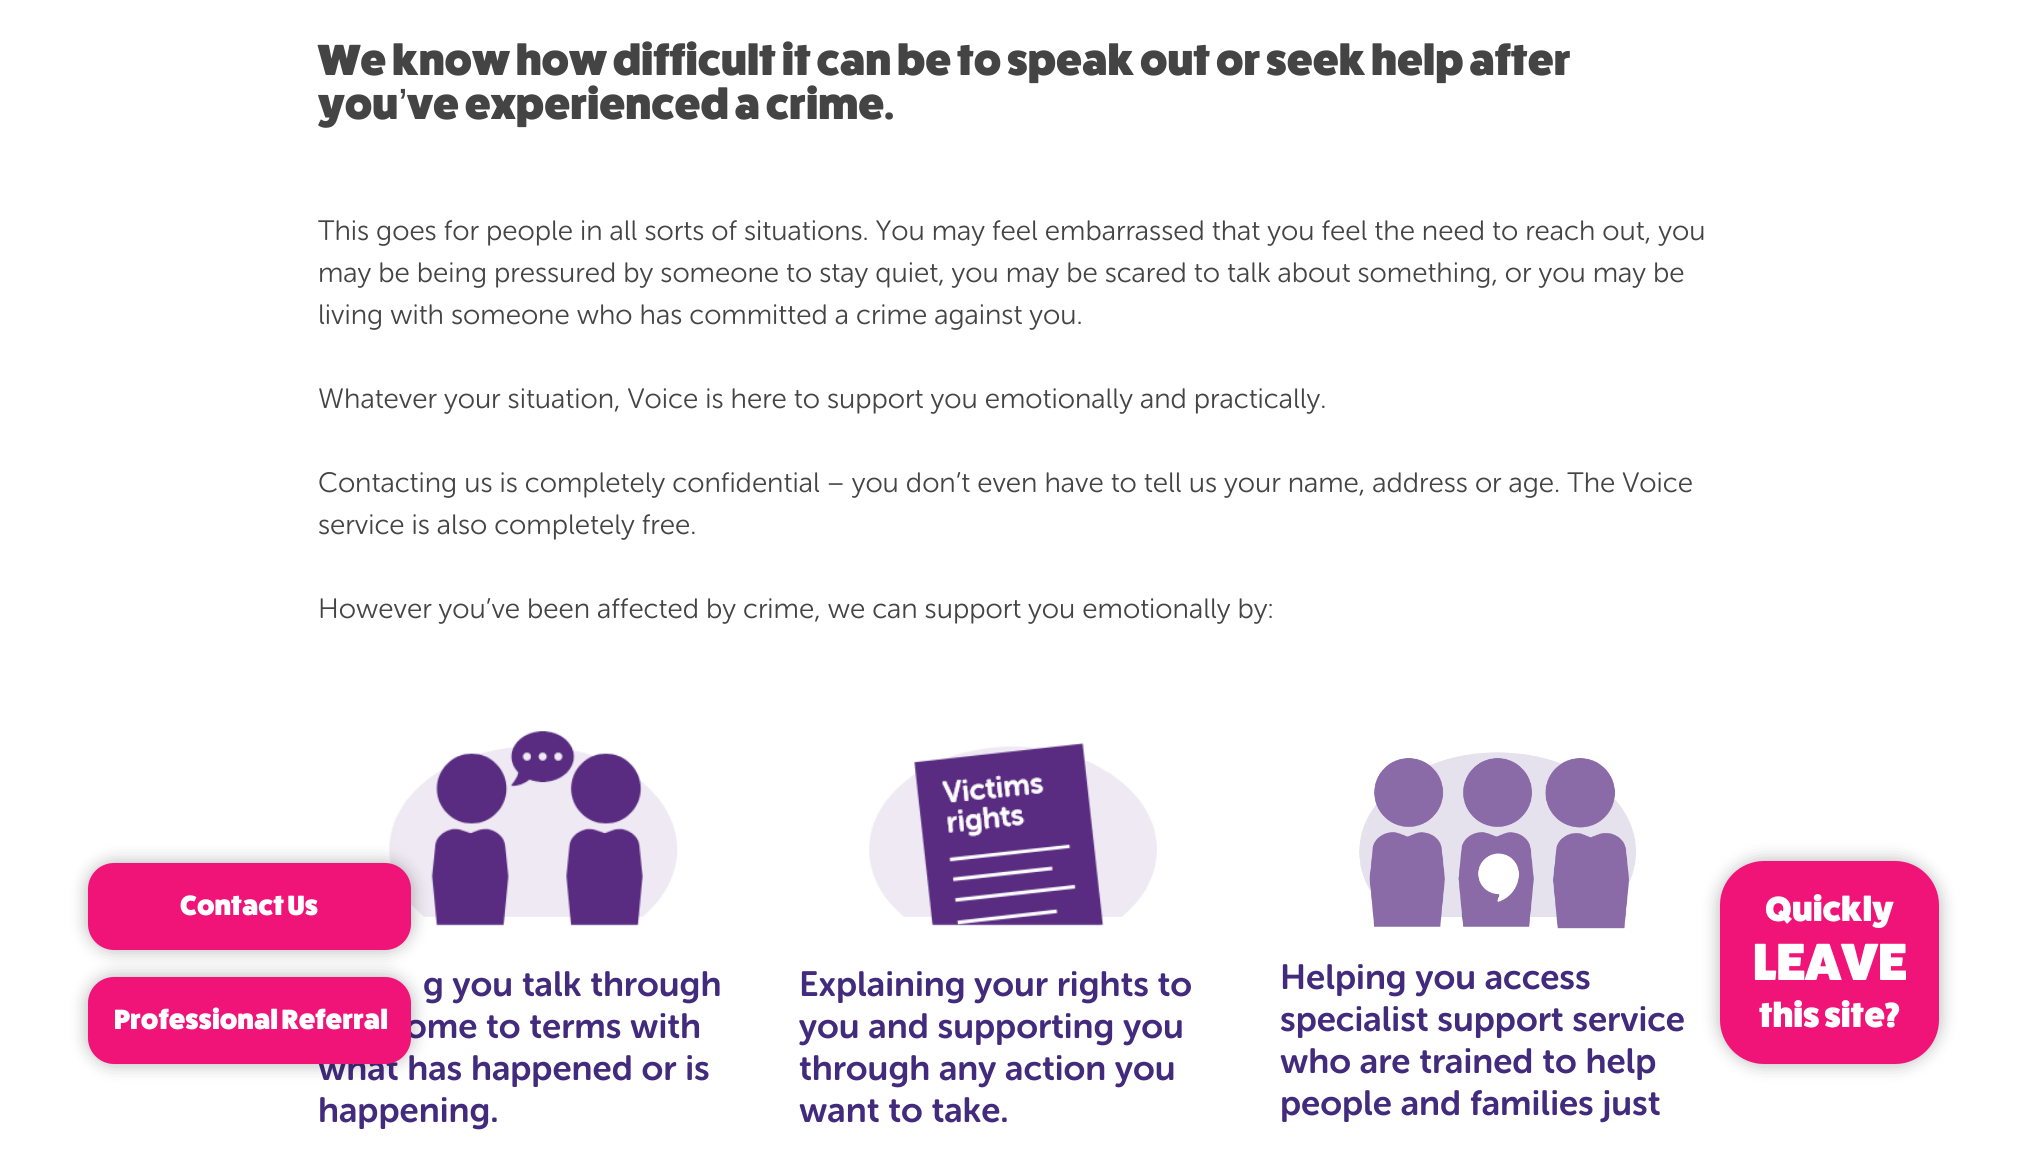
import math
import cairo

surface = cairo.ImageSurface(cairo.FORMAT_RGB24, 2025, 1150)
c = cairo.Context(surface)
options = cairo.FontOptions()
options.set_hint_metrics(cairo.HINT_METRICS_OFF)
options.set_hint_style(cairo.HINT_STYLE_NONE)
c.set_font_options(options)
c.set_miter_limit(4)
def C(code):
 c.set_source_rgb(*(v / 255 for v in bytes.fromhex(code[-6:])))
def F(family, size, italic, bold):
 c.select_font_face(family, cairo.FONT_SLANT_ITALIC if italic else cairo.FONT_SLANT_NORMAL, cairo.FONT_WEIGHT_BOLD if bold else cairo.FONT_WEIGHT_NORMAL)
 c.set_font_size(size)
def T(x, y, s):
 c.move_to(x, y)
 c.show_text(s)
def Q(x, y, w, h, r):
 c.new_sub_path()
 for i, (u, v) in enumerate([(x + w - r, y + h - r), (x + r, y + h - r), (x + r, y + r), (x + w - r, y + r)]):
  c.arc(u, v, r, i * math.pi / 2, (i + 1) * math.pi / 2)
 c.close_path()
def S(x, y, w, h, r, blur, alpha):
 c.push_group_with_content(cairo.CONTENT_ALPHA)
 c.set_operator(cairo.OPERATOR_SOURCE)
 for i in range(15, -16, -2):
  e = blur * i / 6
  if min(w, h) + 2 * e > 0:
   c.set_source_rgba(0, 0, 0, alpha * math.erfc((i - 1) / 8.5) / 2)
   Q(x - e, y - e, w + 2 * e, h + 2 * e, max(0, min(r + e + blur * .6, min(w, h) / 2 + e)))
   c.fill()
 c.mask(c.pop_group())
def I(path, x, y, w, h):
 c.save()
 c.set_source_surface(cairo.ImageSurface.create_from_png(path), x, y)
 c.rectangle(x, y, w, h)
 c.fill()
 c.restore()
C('ffffff')
c.paint()
I('1.png',389,731,289,195)
F('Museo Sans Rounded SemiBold',35,0,0)
C('422a7d')
T(405,1038,'ome to terms with')
T(318,1080,'what has happened or is')
C('000000')
S(88,977,323,87,26,9,.3)
C('f01478')
Q(88,977,323,87,26)
c.fill()
C('000000')
S(88,863,323,87,26,9,.3)
C('f01478')
Q(88,863,323,87,26)
c.fill()
F('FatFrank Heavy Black',28,0,0)
C('ffffff')
T(180,915,'Contact Us')
F('FatFrank Heavy Black',43.75,0,0)
C('444444')
T(318,75,'We know how difficult it can be to speak out or seek help after')
T(318,119,'you')
F('Liberation Sans',43.75,0,0)
T(398,119,'’')
F('FatFrank Heavy Black',43.75,0,0)
T(407,119,'ve experienced a crime.')
F('Museo Sans Rounded Light',28,0,0)
T(318,240,'This goes for people in all sorts of situations. You may feel embarrassed that you feel the need to reach out, you')
T(318,282,'may be being pressured by someone to stay quiet, you may be scared to talk about something, or you may be')
T(318,324,'living with someone who has committed a crime against you.')
T(318,408,'Whatever your situation, Voice is here to support you emotionally and practically.')
T(318,492,'Contacting us is completely confidential – you don’t even have to tell us your name, address or age. The Voice')
T(318,534,'service is also completely free.')
T(318,618,'However you’ve been affected by crime, we can support you emotionally by:')
F('Museo Sans Rounded SemiBold',35,0,0)
C('422a7d')
T(423,996,'g you talk through')
T(318,1122,'happening.')
I('2.png',869,742,288,184)
T(799,996,'Explaining your rights to')
T(799,1038,'you and supporting you')
T(799,1080,'through any action you')
T(799,1122,'want to take.')
I('3.png',1359,752,277,177)
T(1280,989,'Helping you access')
T(1280,1031,'specialist support service')
T(1280,1073,'who are trained to help')
T(1280,1115,'people and families just')
C('000000')
S(1720,861,219,203,44,9,.3)
C('f01478')
Q(1720,861,219,203,44)
c.fill()
F('FatFrank Heavy Black',35,0,0)
C('ffffff')
T(1765,921,'Quickly')
F('FatFrank Heavy Black',52.5,0,0)
T(1753,980,'LEAVE')
F('FatFrank Heavy Black',35,0,0)
T(1759,1027,'this site?')
F('FatFrank Heavy Black',28,0,0)
T(114,1029,'Professional Referral')
surface.write_to_png('o.png')
